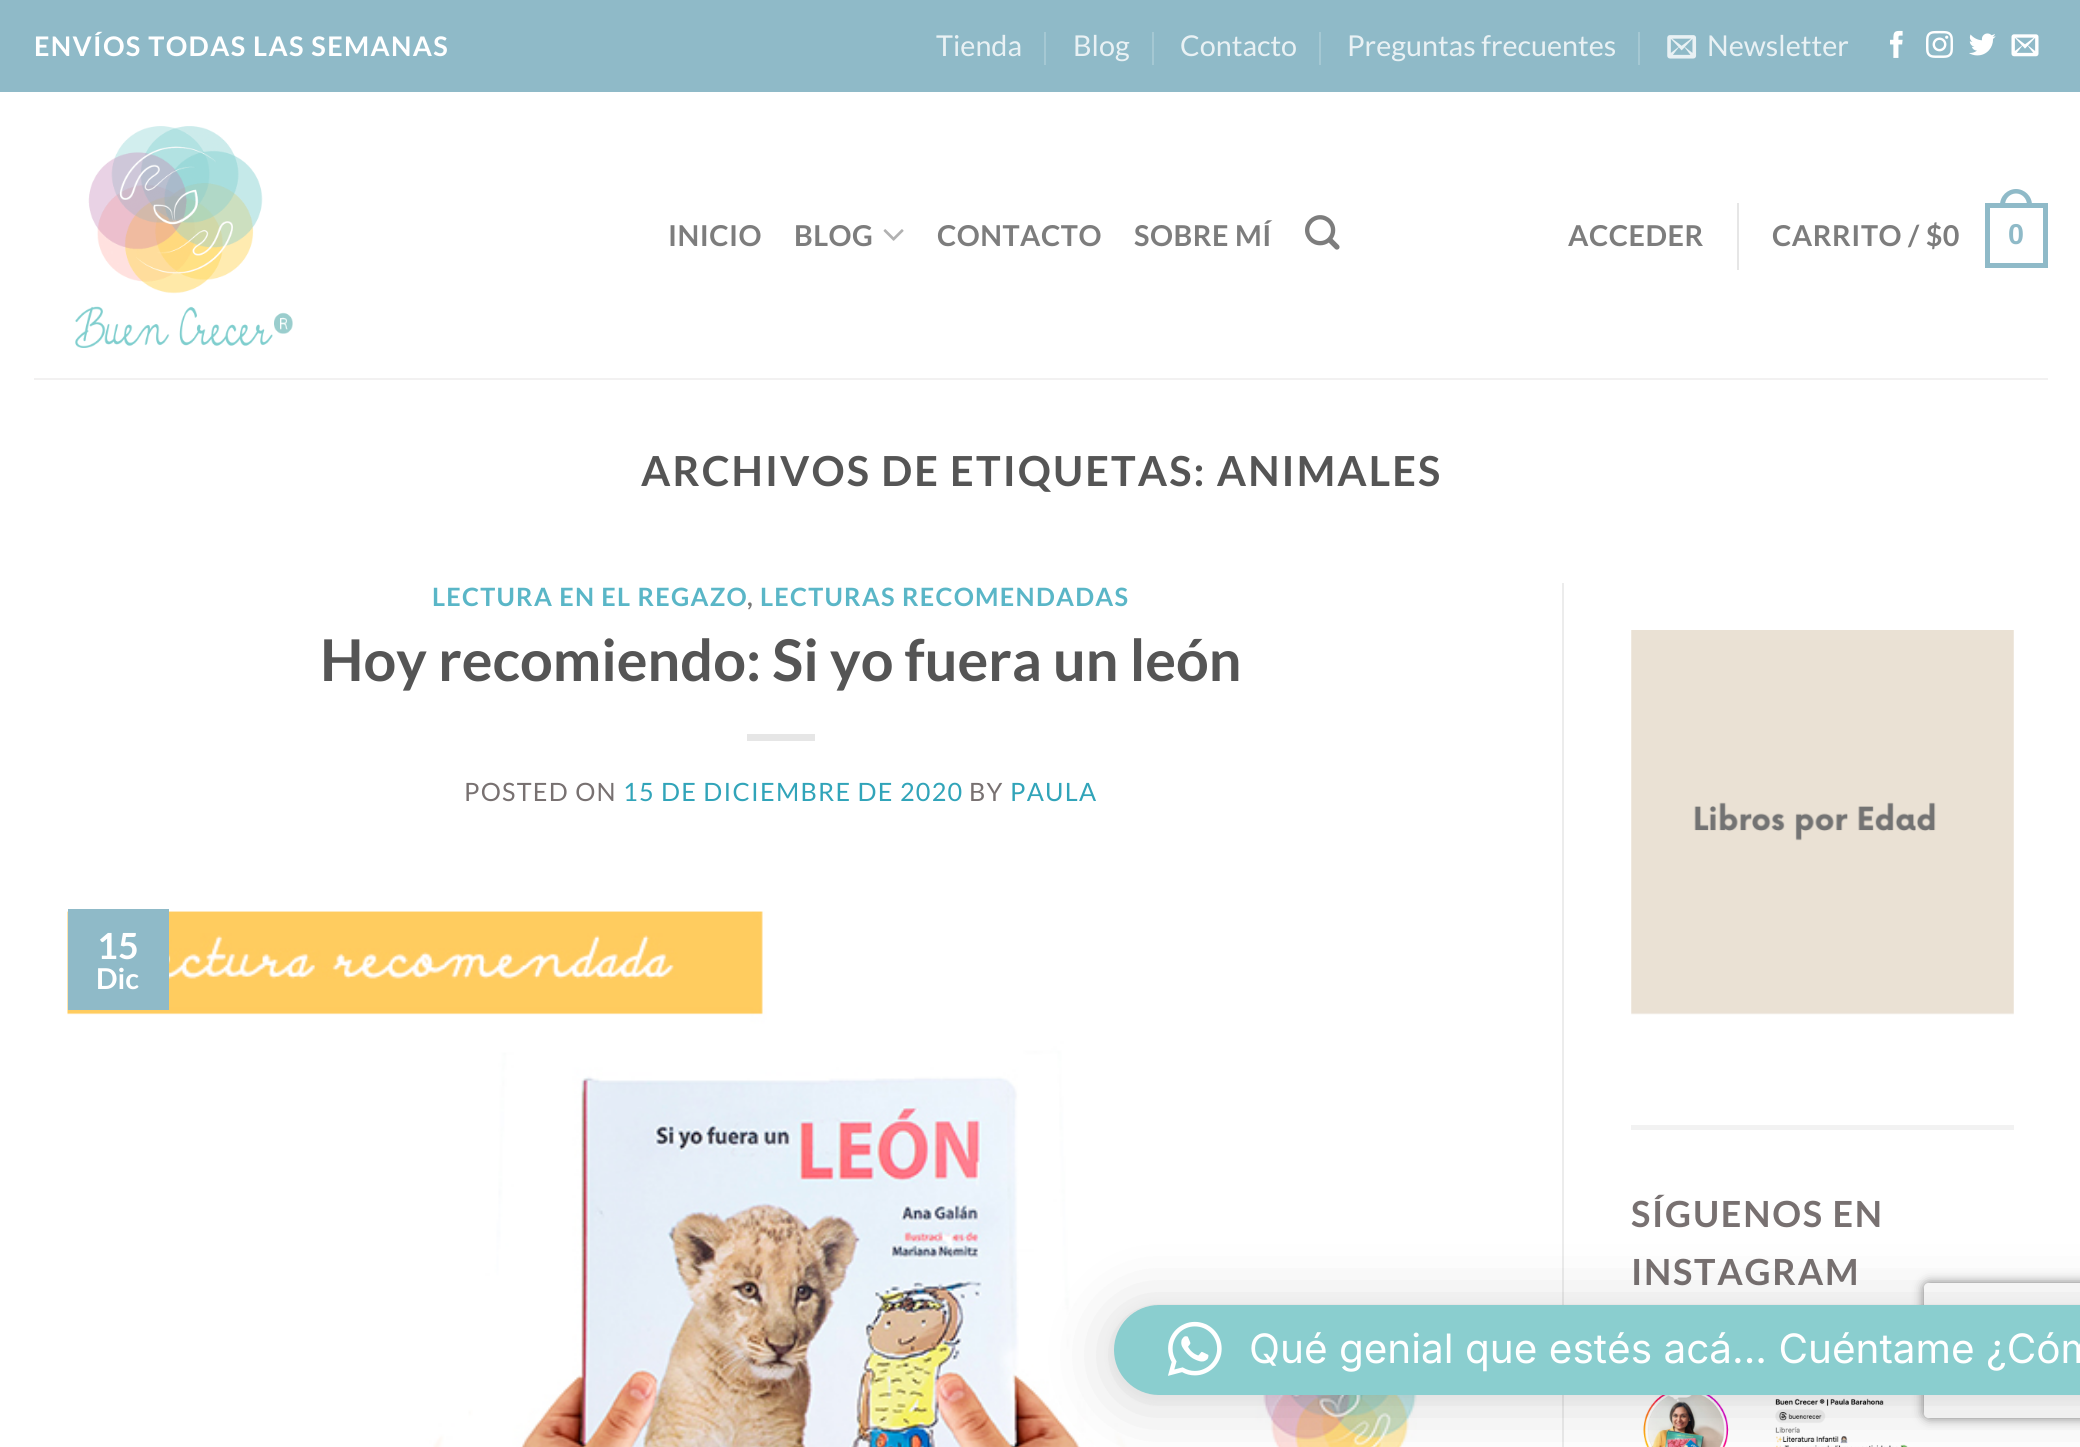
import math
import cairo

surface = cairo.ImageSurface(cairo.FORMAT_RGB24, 2080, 1447)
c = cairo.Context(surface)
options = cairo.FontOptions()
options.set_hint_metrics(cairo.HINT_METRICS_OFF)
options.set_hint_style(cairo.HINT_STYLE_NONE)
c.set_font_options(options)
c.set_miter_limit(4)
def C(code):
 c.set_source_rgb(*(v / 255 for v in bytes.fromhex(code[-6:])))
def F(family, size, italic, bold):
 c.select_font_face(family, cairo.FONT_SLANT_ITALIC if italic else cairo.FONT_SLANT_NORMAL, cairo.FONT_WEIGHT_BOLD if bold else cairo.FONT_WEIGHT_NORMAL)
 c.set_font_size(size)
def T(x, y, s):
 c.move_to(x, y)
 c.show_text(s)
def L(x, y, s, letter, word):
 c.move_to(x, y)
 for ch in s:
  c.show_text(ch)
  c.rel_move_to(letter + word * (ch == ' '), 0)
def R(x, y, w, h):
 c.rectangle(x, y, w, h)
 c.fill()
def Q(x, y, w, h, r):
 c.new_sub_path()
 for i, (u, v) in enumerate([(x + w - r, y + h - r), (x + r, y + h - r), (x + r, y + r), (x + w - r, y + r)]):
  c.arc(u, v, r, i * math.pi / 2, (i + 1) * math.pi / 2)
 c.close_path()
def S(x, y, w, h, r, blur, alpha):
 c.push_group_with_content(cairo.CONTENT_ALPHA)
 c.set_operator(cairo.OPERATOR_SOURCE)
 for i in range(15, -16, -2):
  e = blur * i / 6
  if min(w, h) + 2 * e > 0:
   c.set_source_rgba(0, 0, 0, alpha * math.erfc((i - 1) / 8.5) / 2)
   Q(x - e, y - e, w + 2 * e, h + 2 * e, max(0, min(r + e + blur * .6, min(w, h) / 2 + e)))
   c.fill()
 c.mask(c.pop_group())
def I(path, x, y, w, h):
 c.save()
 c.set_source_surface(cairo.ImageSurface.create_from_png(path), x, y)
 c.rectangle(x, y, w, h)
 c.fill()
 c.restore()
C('ffffff')
c.paint()
C('8fbac8')
R(0,0,2080,92)
F('Lato',27,0,1)
C('ffffff')
L(34,56,'ENVÍOS TODAS LAS SEMANAS',1.35,0)
F('Lato',28.75,0,0)
C('e9f1f4')
T(936,56,'Tienda')
C('a5c8d3')
R(1044,32,2,33)
C('e9f1f4')
T(1073,56,'Blog')
C('a5c8d3')
R(1152,32,2,33)
C('e9f1f4')
T(1180,56,'Contacto')
C('a5c8d3')
R(1319,32,2,33)
C('e9f1f4')
T(1347,56,'Preguntas frecuentes')
C('a5c8d3')
R(1638,32,2,33)
I('1.png',1667,35,30,24)
C('e9f1f4')
T(1707,56,'Newsletter')
I('2.png',1890,30,13,28)
I('3.png',1926,30,27,28)
I('4.png',1969,33,27,23)
I('5.png',2011,34,28,23)
I('6.png',75,126,218,222)
F('Lato',28.75,0,1)
C('7d7d7d')
L(668,246,'INICIO',.5,0)
L(794,246,'BLOG',.5,0)
I('7.png',883,229,21,12)
L(937,246,'CONTACTO',.5,0)
L(1134,246,'SOBRE MÍ',.5,0)
I('8.png',1305,215,35,35)
L(1568,246,'ACCEDER',.5,0)
C('e6e6e6')
R(1737,203,2,67)
C('7d7d7d')
L(1772,246,'CARRITO / $0',.5,0)
c.rectangle(1987.5,205.5,58,60)
C('8fbac8')
c.set_line_width(5)
c.stroke()
c.set_fill_rule(cairo.FILL_RULE_EVEN_ODD)
c.new_path()
c.move_to(2016,189)
c.curve_to(2024.5,189,2032,196,2032,205)
c.line_to(2032,207)
c.line_to(2000,207)
c.line_to(2000,205)
c.curve_to(2000,196,2007.5,189,2016,189)
c.close_path()
c.move_to(2016,193.5)
c.curve_to(2022,193.5,2027,198.5,2027,205)
c.line_to(2027,207)
c.line_to(2005,207)
c.line_to(2005,205)
c.curve_to(2005,198.5,2010,193.5,2016,193.5)
c.close_path()
c.fill()
F('Liberation Sans',28.75,0,1)
L(2008,244,'0',.5,0)
C('f2f1f1')
R(34,378,2014,2)
F('Lato',41.4,0,1)
C('555555')
L(641,486,'ARCHIVOS DE ETIQUETAS: ANIMALES',2.1,0)
F('Lato',25.25,0,1)
C('5ab6c7')
L(432,606,'LECTURA EN EL REGAZO',1.25,0)
C('777777')
L(747,606,',',1.25,0)
C('5ab6c7')
L(760,606,'LECTURAS RECOMENDADAS',1.25,0)
F('Lato',57.6,0,1)
C('555555')
T(320,681,'Hoy recomiendo: Si yo fuera un león')
C('e6e6e6')
R(747,734,68,7)
F('Lato',25.25,0,0)
C('787171')
L(464,801,'POSTED ON',1.25,0)
C('31a4b9')
L(623,801,'15 DE DICIEMBRE DE 2020',1.25,0)
C('787171')
L(969,801,'BY',1.25,0)
C('31a4b9')
L(1010,801,'PAULA',1.25,0)
I('9.png',67,911,1350,536)
C('8fbac8')
R(68,909,101,101)
F('Lato',36,0,1)
C('ffffff')
T(97,959,'15')
F('Lato',28.75,0,1)
T(96,989,'Dic')
C('ececec')
R(1562,583,2,864)
I('10.png',1631,630,383,385)
C('f2f2f2')
R(1631,1125,383,5)
F('Lato',36,0,1)
C('787171')
L(1631,1227,'SÍGUENOS EN',1.75,0)
L(1631,1285,'INSTAGRAM',1.75,0)
I('11.png',1643,1395,361,52)
c.save()
c.new_path()
c.move_to(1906,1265)
c.line_to(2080,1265)
c.line_to(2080,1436)
c.line_to(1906,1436)
c.close_path()
c.move_to(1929,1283)
c.line_to(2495,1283)
c.curve_to(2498,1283,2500,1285,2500,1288)
c.line_to(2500,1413)
c.curve_to(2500,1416,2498,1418,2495,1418)
c.line_to(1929,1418)
c.curve_to(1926,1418,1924,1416,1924,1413)
c.line_to(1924,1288)
c.curve_to(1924,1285,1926,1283,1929,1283)
c.close_path()
c.clip()
C('808080')
S(1924,1283,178,135,5,5.5,1)
c.restore()
C('000000')
S(1114,1310,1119,90,45,36,.16)
S(1114,1307,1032,90,45,7,.06)
C('8acecf')
Q(1114,1305,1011,90,45)
c.fill()
I('12.png',1168,1321,54,55)
F('Inter',40.5,0,0)
C('ffffff')
T(1249,1363,'Qué genial que estés acá... Cuéntame ¿Cóm')
surface.write_to_png('o.png')
